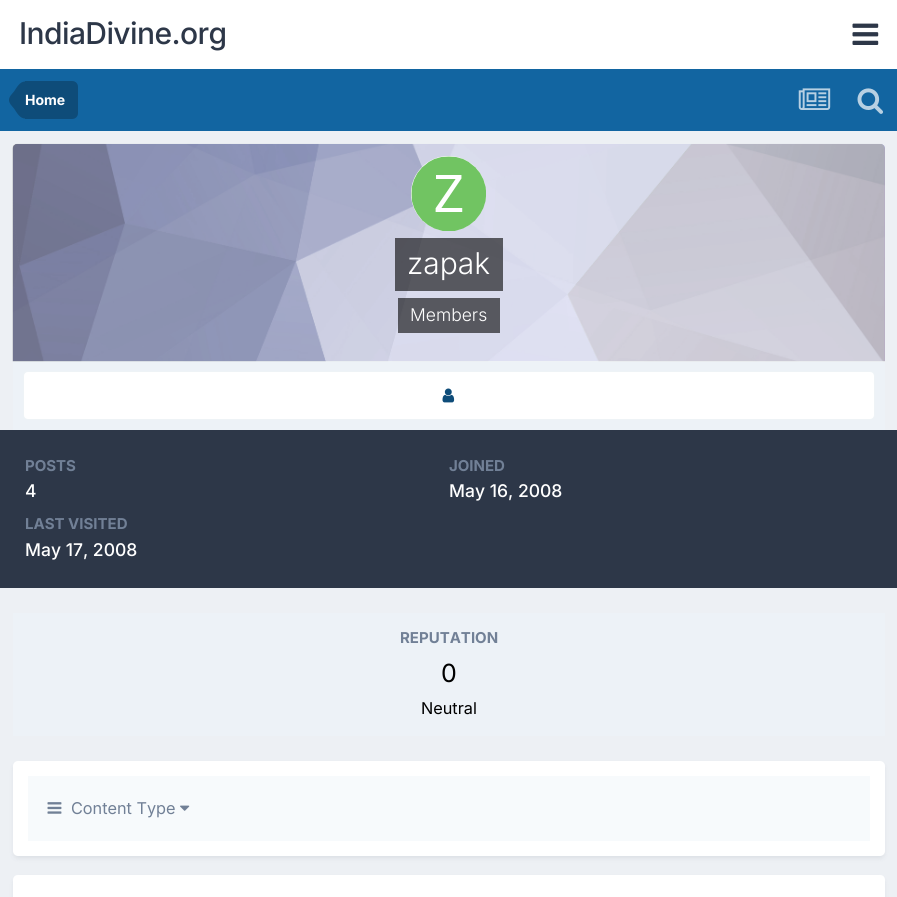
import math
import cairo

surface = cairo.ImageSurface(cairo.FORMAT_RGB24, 897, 897)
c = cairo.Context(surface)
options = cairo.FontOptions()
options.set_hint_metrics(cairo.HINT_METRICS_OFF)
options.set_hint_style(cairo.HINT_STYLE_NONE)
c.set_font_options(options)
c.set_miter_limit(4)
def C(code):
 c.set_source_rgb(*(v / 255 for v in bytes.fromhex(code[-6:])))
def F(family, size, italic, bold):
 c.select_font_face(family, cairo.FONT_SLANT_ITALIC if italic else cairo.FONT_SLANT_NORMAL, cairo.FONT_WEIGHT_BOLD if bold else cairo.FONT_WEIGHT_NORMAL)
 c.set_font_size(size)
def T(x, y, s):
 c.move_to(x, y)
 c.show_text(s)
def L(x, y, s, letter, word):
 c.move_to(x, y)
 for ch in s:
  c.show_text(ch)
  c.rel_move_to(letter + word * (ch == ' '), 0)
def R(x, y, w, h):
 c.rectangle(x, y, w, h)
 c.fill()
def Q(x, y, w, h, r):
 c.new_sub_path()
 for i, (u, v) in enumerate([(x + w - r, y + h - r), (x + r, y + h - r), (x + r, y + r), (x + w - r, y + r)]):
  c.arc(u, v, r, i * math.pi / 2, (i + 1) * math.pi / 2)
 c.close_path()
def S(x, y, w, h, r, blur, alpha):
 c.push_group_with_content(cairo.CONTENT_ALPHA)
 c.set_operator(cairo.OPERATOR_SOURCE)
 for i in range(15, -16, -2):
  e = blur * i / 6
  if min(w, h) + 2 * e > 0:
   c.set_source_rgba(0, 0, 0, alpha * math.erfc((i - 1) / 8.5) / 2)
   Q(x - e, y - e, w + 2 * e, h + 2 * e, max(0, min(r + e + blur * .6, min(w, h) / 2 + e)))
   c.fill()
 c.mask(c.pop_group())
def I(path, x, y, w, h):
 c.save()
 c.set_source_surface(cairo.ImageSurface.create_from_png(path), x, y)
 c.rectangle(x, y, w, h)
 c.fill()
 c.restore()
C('edf0f4')
c.paint()
C('ffffff')
R(0,0,897,69)
F('Inter Medium',30,0,0)
C('2d3748')
L(19,44,'IndiaDivine.org',-.6,0)
I('1.png',852,23,27,22)
C('1265a1')
R(0,69,897,62)
C('0e4c79')
c.new_path()
c.move_to(25,81)
c.line_to(72,81)
c.curve_to(75.5,81,78,83.5,78,87)
c.line_to(78,113)
c.curve_to(78,116.5,75.5,119,72,119)
c.line_to(25,119)
c.close_path()
c.fill()
c.new_path()
c.move_to(25,100)
c.line_to(25,118.5)
c.curve_to(19.5,118.5,16.5,112,14,108.5)
c.curve_to(12,106,9,103.5,9,100)
c.close_path()
c.move_to(25,100)
c.line_to(9,100)
c.curve_to(9,96.5,12,94,14,91.5)
c.curve_to(16.5,88,19.5,81.5,25,81.5)
c.close_path()
c.fill()
F('Inter',14,0,1)
C('ffffff')
T(25,105,'Home')
I('2.png',798,88,33,22)
I('3.png',857,88,26,26)
C('99a2ff')
c.new_path()
c.move_to(18,144)
c.line_to(880,144)
c.curve_to(883,144,885,146,885,149)
c.line_to(885,361)
c.line_to(13,361)
c.line_to(13,149)
c.curve_to(13,146,15,144,18,144)
c.close_path()
c.fill()
C('edf2f7')
R(13,361,872,69)
I('4.png',12,143,873,219)
C('ffffff')
c.arc(448.5,193.5,37.5,0,2 * math.pi)
c.fill()
I('5.png',411,156,75,75)
c.set_source_rgba(0,0,0,0.6)
R(395,238,108,53)
F('Inter Light',30,0,0)
C('ffffff')
T(407,274,'zapak')
c.set_source_rgba(0,0,0,0.6)
R(398,298,102,35)
F('Inter Light',17.5,0,0)
C('ffffff')
T(410,321,'Members')
Q(23,371,852,49,5)
c.fill()
Q(23.5,371.5,851,48,4.5)
c.set_source_rgba(0.055,0.298,0.475,0.07)
c.set_line_width(1)
c.stroke()
I('6.png',442,388,13,15)
C('2d3748')
R(0,430,897,158)
F('Inter',15,0,1)
C('718096')
T(25,471,'POSTS')
F('Inter Medium',17.5,0,0)
C('ffffff')
T(25,497,'4')
F('Inter',15,0,1)
C('718096')
T(449,471,'JOINED')
F('Inter Medium',17.5,0,0)
C('ffffff')
T(449,497,'May 16, 2008')
F('Inter',15,0,1)
C('718096')
T(25,529,'LAST VISITED')
F('Inter Medium',17.5,0,0)
C('ffffff')
T(25,556,'May 17, 2008')
C('edf2f7')
R(13,613,872,123)
F('Inter',15,0,1)
C('718096')
T(400,643,'REPUTATION')
F('Inter',25,0,0)
C('000000')
T(441,682,'0')
F('Inter',16.25,0,0)
T(421,714,'Neutral')
C('2d3748')
S(14,765,870,93,4,2.5,.1)
C('ffffff')
Q(13,761,872,95,5)
c.fill()
C('f7fafc')
R(28,776,842,65)
I('7.png',47,802,15,12)
C('718096')
T(71,814,'Content Type')
I('8.png',180,805,10,6)
C('2d3748')
S(14,879,870,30,4,2.5,.1)
C('ffffff')
c.new_path()
c.move_to(18,875)
c.line_to(880,875)
c.curve_to(883,875,885,877,885,880)
c.line_to(885,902)
c.line_to(13,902)
c.line_to(13,880)
c.curve_to(13,877,15,875,18,875)
c.close_path()
c.fill()
surface.write_to_png('o.png')
